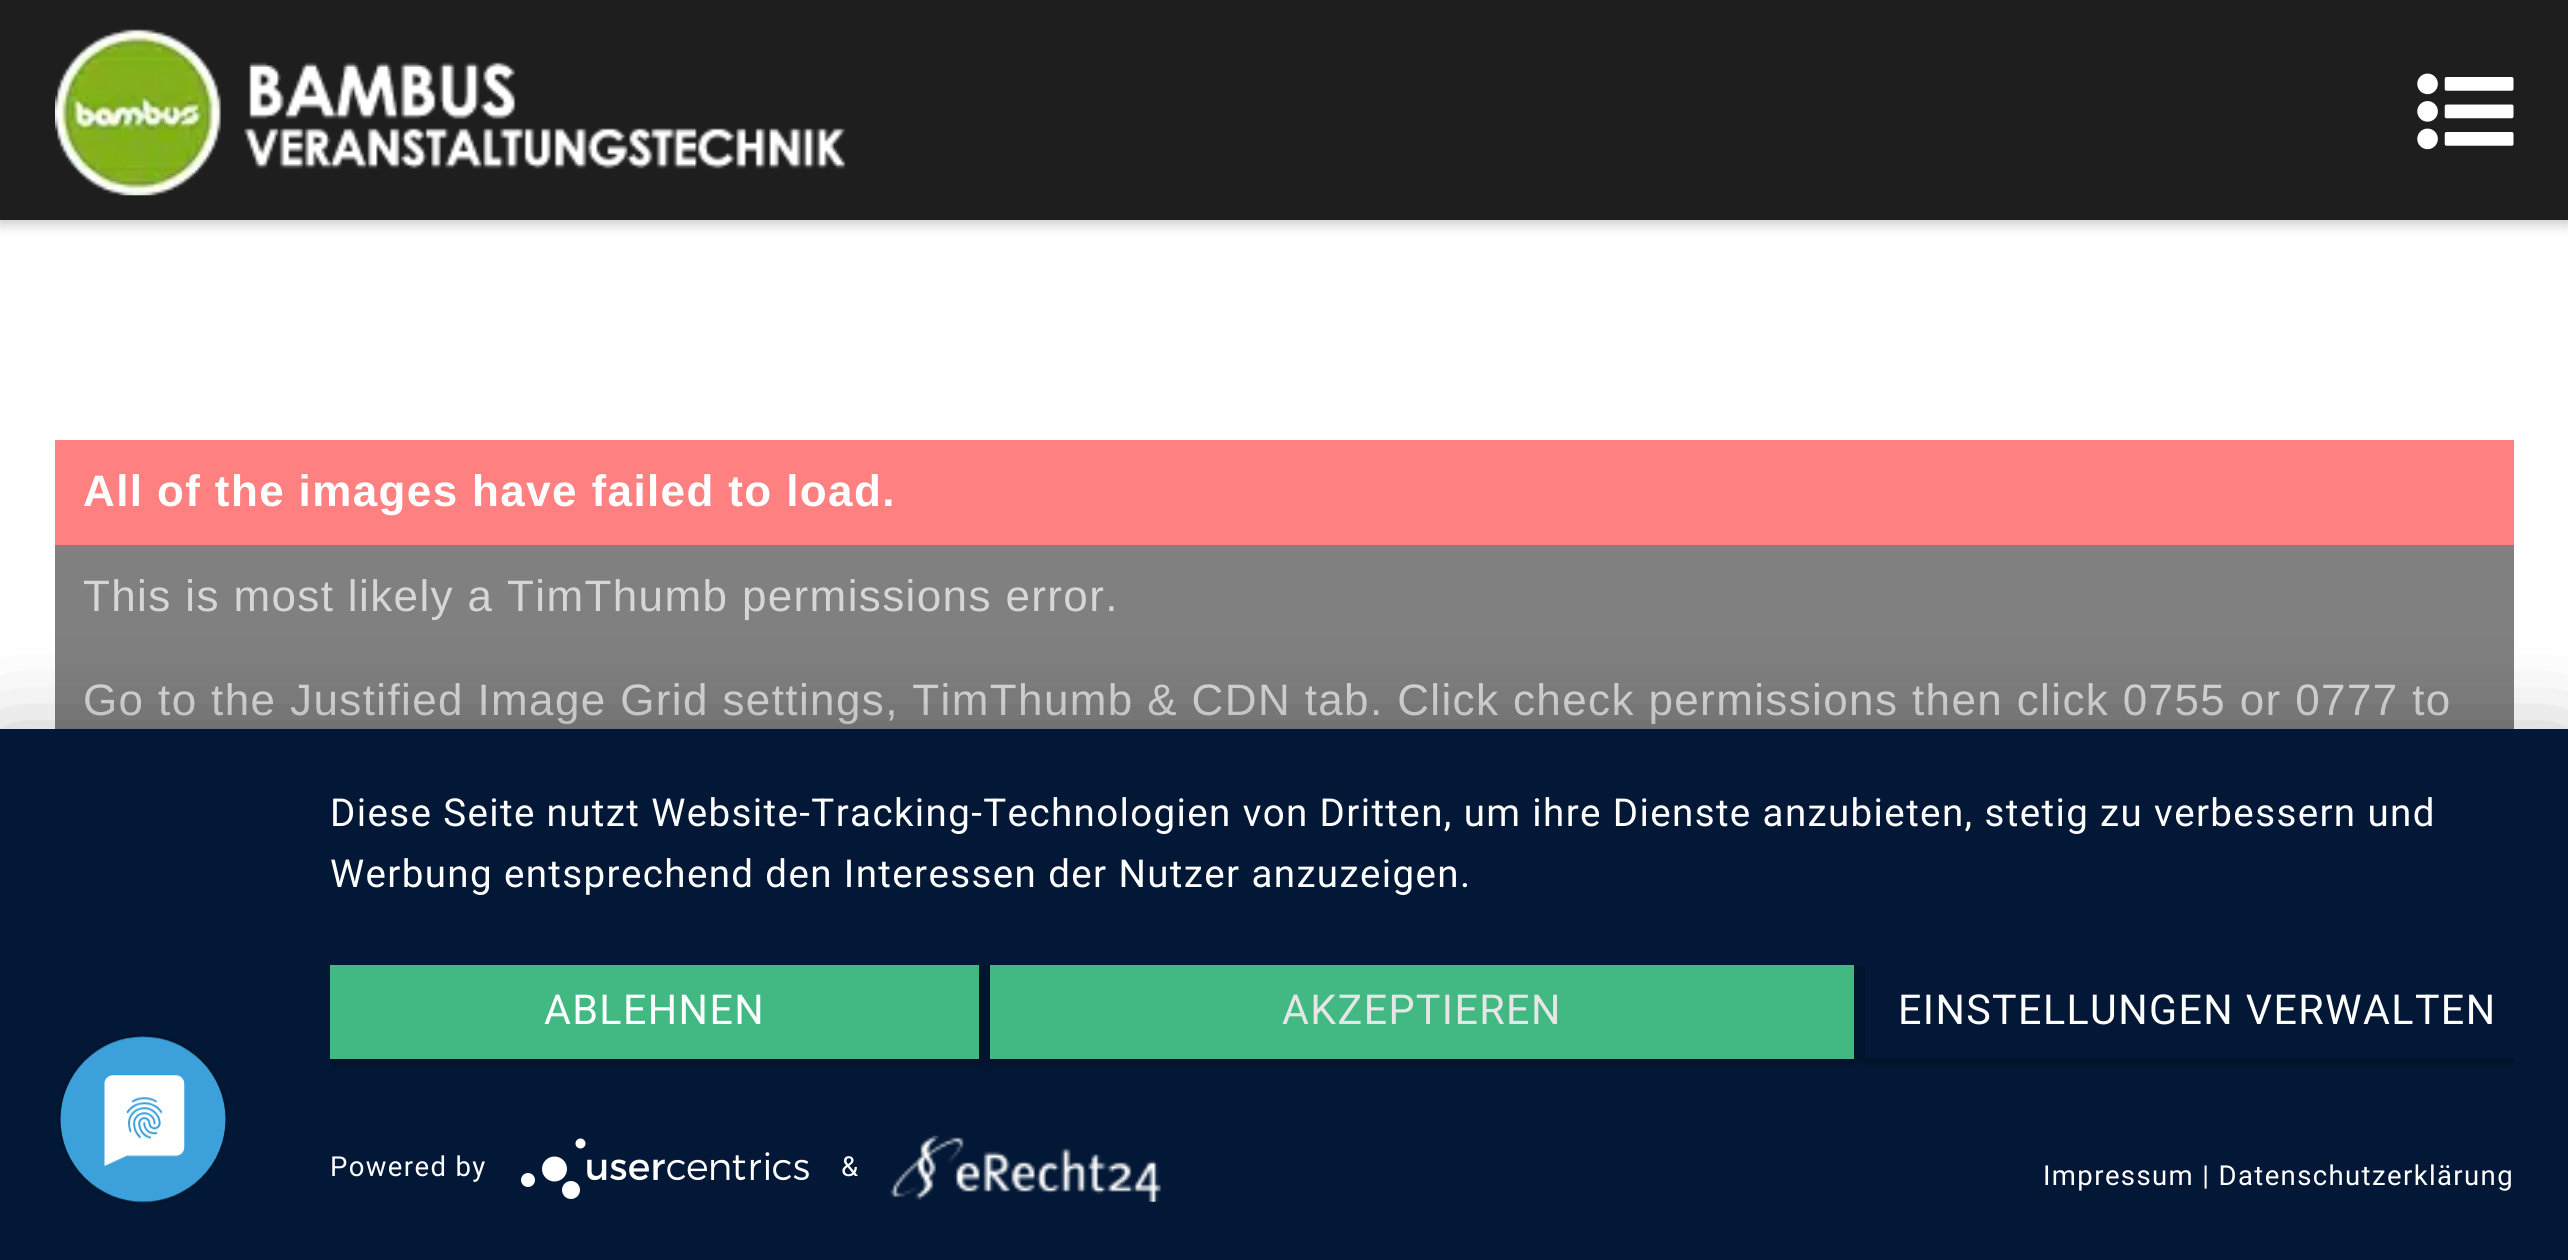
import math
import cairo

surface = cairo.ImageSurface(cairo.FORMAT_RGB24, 2568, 1260)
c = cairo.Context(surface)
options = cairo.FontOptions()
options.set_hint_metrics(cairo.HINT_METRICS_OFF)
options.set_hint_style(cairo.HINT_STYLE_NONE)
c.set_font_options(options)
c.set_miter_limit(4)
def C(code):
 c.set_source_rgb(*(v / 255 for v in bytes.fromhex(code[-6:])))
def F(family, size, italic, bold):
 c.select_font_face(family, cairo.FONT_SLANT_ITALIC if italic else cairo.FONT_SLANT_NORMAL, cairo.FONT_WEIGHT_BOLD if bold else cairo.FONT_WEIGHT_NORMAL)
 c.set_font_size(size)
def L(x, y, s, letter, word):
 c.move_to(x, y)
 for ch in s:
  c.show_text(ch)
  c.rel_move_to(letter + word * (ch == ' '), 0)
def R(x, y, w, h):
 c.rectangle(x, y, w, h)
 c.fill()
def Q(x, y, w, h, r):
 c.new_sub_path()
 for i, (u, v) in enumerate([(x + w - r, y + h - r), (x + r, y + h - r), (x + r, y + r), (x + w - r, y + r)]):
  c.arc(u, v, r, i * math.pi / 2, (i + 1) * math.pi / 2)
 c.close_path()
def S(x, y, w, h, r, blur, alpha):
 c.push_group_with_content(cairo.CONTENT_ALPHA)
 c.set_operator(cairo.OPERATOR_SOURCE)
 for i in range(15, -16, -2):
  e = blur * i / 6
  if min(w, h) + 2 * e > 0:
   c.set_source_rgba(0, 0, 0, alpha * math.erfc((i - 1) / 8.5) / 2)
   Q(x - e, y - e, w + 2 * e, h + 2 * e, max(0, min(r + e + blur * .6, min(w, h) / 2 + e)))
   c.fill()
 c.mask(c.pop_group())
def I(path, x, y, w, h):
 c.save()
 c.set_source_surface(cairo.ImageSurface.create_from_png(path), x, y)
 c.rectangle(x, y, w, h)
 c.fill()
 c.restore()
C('ffffff')
c.paint()
C('000000')
S(0,3,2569,220,0,7,.25)
C('1e1e1e')
R(0,0,2568,220)
I('1.png',55,29,791,167)
I('2.png',2417,73,97,77)
C('ff8080')
R(55,440,2459,105)
F('Liberation Sans',44,0,1)
C('ffffff')
L(83,506,'All of the images have failed to load.',1.38,0)
C('808080')
R(55,545,2459,184)
F('Liberation Sans',44,0,0)
C('d6d6d6')
L(83,611,'This is most likely a TimThumb permissions error.',1.38,0)
L(83,715,'Go to the Justified Image Grid settings, TimThumb & CDN tab. Click check permissions then click 0755 or 0777 to',1.38,0)
C('000000')
S(0,745,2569,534,0,49.5,.3)
C('021836')
R(0,729,2568,531)
I('3.png',58,1034,170,170)
F('Roboto',38.5,0,0)
C('ffffff')
L(330,826,'Diese Seite nutzt Website-Tracking-Technologien von Dritten, um ihre Dienste anzubieten, stetig zu verbessern und',1.38,0)
L(330,887,'Werbung entsprechend den Interessen der Nutzer anzuzeigen.',1.38,0)
c.save()
c.rectangle(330,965,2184,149)
c.clip()
C('000000')
S(330,968,649,94,0,5.5,.4)
c.restore()
C('42b983')
R(330,965,649,94)
F('Roboto',41.25,0,0)
C('ffffff')
L(544,1024,'ABLEHNEN',1.38,0)
c.save()
c.rectangle(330,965,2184,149)
c.clip()
C('000000')
S(990,968,864,94,0,5.5,.4)
c.restore()
C('42b983')
R(990,965,864,94)
C('e6e6e6')
L(1282,1024,'AKZEPTIEREN',1.38,0)
c.save()
c.rectangle(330,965,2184,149)
c.clip()
C('000000')
S(1865,968,649,94,0,5.5,.4)
c.restore()
C('021836')
R(1865,965,649,94)
C('ffffff')
L(1898,1024,'EINSTELLUNGEN VERWALTEN',1.38,0)
F('Roboto',27.5,0,0)
L(330,1176,'Powered by',1.38,0)
I('4.png',521,1138,288,61)
L(841,1176,'&',1.38,0)
I('5.png',890,1135,271,67)
L(2043,1185,'Impressum | Datenschutzerklärung',1.38,0)
surface.write_to_png('o.png')
